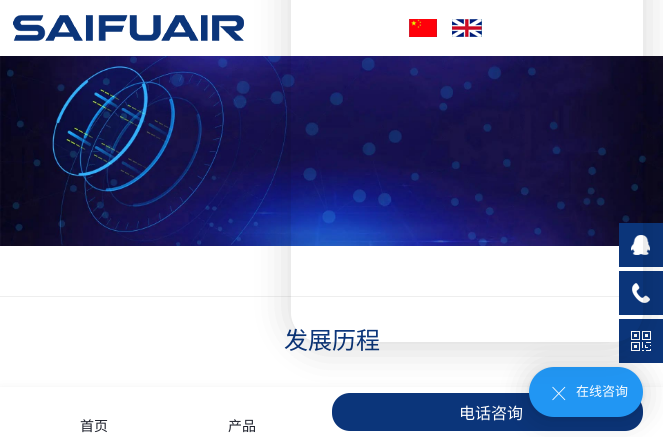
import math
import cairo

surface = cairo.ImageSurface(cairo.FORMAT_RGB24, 663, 437)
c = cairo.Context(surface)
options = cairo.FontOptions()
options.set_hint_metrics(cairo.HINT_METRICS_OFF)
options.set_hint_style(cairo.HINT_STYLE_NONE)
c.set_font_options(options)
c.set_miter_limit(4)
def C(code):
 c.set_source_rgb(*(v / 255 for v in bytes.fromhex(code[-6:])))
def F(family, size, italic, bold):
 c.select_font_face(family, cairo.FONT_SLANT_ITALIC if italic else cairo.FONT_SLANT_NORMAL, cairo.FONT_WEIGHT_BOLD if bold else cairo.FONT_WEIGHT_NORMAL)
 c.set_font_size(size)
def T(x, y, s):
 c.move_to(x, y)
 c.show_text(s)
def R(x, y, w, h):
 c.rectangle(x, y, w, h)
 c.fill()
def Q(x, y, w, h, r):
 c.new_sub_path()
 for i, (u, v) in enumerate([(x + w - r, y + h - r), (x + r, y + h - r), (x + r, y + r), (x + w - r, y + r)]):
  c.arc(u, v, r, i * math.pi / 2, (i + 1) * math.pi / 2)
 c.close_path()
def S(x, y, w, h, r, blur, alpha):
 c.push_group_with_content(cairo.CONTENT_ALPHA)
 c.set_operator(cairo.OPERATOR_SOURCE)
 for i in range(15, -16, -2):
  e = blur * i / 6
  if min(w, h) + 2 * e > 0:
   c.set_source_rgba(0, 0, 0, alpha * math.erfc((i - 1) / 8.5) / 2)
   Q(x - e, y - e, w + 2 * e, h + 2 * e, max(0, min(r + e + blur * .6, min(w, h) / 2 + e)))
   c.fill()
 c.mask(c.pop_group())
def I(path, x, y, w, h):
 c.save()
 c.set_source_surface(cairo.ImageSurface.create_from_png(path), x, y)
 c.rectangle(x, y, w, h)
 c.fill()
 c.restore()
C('ffffff')
c.paint()
I('1.png',13,15,231,26)
I('2.png',409,19,28,18)
I('3.png',452,19,30,18)
I('4.png',0,56,663,190)
C('eeeeee')
R(0,296,619,1)
F('Noto Sans CJK SC',24,0,0)
C('0b357a')
T(284,349,'发展历程')
R(619,223,44,44)
I('5.png',631,235,19,20)
R(619,271,44,44)
I('6.png',632,283,18,20)
R(619,319,44,44)
I('7.png',631,331,20,20)
C('000000')
S(0,395,663,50,0,8,.15)
C('ffffff')
R(0,387,663,50)
C('0b357a')
Q(332,393,311,38,18)
c.fill()
C('000000')
S(529,369,114,50,25,16,.16)
S(529,368,114,50,25,3,.06)
C('2196f3')
Q(529,367,114,50,25)
c.fill()
I('8.png',552,386,14,15)
c.save()
c.set_fill_rule(cairo.FILL_RULE_EVEN_ODD)
c.new_path()
c.move_to(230,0)
c.line_to(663,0)
c.line_to(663,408)
c.line_to(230,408)
c.close_path()
c.move_to(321,-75)
c.line_to(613,-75)
c.curve_to(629.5,-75,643,-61.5,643,-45)
c.line_to(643,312)
c.curve_to(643,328.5,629.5,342,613,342)
c.line_to(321,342)
c.curve_to(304.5,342,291,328.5,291,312)
c.line_to(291,-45)
c.curve_to(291,-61.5,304.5,-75,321,-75)
c.close_path()
c.clip()
C('000000')
S(291,-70,352,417,30,20,.16)
c.restore()
F('Noto Sans CJK SC',13,0,0)
C('ffffff')
T(576,396,'在线咨询')
F('Noto Sans CJK SC',16,0,0)
T(459,419,'电话咨询')
F('Noto Sans CJK SC',14,0,0)
C('1c1f2a')
T(80,431,'首页')
T(228,431,'产品')
surface.write_to_png('o.png')
